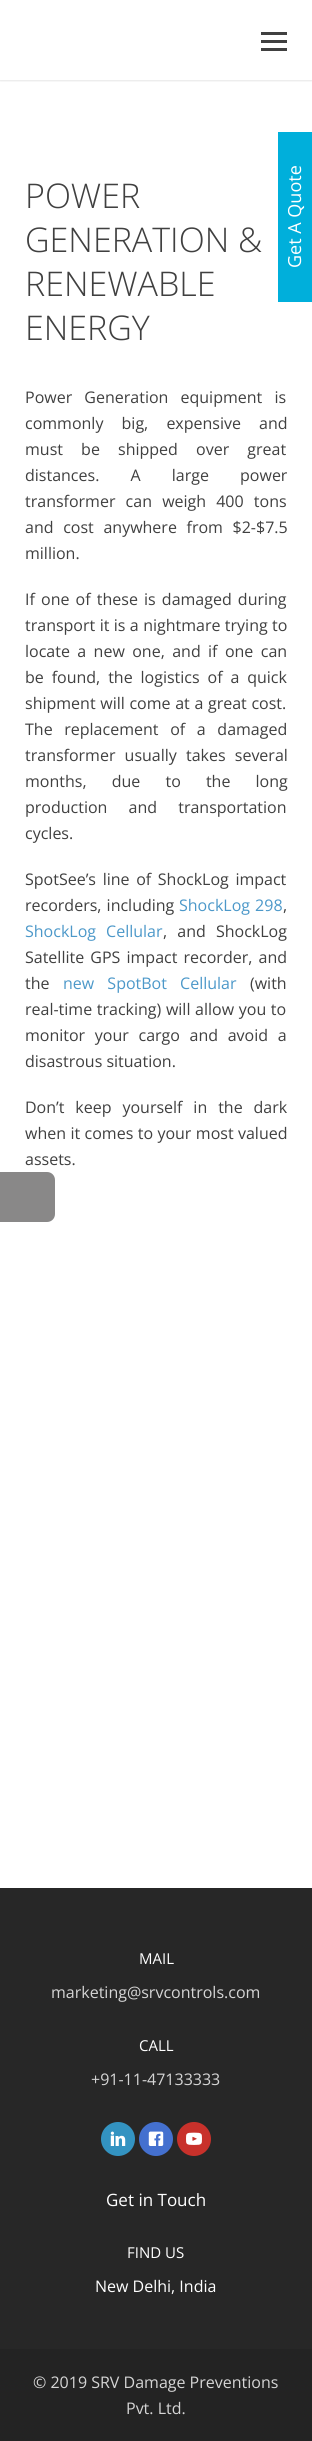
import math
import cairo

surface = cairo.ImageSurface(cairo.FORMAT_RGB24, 312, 2441)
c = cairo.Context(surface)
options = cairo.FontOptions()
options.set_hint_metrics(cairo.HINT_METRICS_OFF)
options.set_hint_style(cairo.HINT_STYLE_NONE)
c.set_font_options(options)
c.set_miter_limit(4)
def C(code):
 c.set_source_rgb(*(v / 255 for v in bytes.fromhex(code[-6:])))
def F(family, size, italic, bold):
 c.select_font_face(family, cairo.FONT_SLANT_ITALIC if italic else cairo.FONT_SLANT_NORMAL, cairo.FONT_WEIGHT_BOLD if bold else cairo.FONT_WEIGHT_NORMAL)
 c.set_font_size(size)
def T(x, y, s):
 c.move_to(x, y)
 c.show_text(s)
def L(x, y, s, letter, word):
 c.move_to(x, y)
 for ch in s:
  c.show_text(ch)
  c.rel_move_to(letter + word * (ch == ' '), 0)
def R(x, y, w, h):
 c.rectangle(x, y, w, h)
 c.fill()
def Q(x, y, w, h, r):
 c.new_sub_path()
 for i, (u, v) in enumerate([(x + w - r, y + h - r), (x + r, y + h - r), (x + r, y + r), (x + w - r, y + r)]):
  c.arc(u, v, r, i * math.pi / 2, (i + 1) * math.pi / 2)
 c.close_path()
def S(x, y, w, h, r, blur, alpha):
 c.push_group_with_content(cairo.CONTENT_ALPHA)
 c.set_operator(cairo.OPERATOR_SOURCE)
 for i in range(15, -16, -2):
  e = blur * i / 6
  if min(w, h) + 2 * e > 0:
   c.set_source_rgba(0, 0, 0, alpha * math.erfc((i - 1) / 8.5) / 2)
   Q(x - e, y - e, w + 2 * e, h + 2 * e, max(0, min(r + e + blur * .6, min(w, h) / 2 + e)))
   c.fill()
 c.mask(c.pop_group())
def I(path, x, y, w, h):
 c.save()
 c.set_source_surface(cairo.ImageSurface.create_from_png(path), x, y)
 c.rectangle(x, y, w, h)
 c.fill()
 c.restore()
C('ffffff')
c.paint()
c.save()
c.rectangle(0,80,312,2)
c.clip()
C('000000')
S(0,1,312,80,0,1,.1)
c.restore()
C('404040')
R(261,40,26,3)
R(261,32,26,3)
R(261,48,26,3)
F('Open Sans Light',34,0,0)
T(25,208,'POWER')
T(25,252,'GENERATION &')
T(25,296,'RENEWABLE')
T(25,340,'ENERGY')
F('Open Sans',16,0,0)
L(25,403,'Power Generation equipment is',0,8)
L(25,429,'commonly big, expensive and',0,14)
L(25,455,'must be shipped over great',0,14)
L(25,481,'distances. A large power',0,27)
L(25,507,'transformer can weigh 400 tons',0,6)
L(25,533,'and cost anywhere from $2-$7.5',0,5.5)
T(25,559,'million.')
L(25,605,'If one of these is damaged during',0,2)
L(25,631,'transport it is a nightmare trying to',0,.25)
L(25,657,'locate a new one, and if one can',0,3.25)
L(25,683,'be found, the logistics of a quick',0,3.75)
L(25,709,'shipment will come at a great cost.',0,.5)
L(25,735,'The replacement of a damaged',0,7.5)
L(25,761,'transformer usually takes several',0,5)
L(25,787,'months, due to the long',0,21)
L(25,813,'production and transportation',0,17)
T(25,839,'cycles.')
L(25,885,'SpotSee’s line of ShockLog impact',0,2.5)
L(25,911,'recorders, including',0,1)
C('4c98c9')
L(179,911,'ShockLog 298',0,1)
C('404040')
T(283,911,',')
C('4c98c9')
L(25,937,'ShockLog Cellular',0,6)
C('404040')
L(163,937,', and ShockLog',0,6)
L(25,963,'Satellite GPS impact recorder, and',0,2)
T(25,989,'the')
C('4c98c9')
L(63,989,'new SpotBot Cellular',0,9)
C('404040')
T(250,989,'(with')
L(25,1015,'real-time tracking) will allow you to',0,.5)
L(25,1041,'monitor your cargo and avoid a',0,5.5)
T(25,1067,'disastrous situation.')
L(25,1113,'Don’t keep yourself in the dark',0,6.75)
L(25,1139,'when it comes to your most valued',0,.25)
T(25,1165,'assets.')
C('00afdb')
R(278,132,34,170)
F('Open Sans',18,0,0)
C('ffffff')
c.save()
c.translate(301,268)
c.rotate(-90 * math.pi / 180)
T(0,0,'Get A Quote')
c.restore()
C('898888')
c.new_path()
c.move_to(-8,1172)
c.line_to(47,1172)
c.curve_to(51.5,1172,55,1175.5,55,1180)
c.line_to(55,1214)
c.curve_to(55,1218.5,51.5,1222,47,1222)
c.line_to(-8,1222)
c.close_path()
c.fill()
C('272727')
R(0,1888,312,461)
F('Open Sans',15,0,0)
C('ffffff')
T(139,1964,'MAIL')
F('Open Sans',16,0,0)
C('d5d5d5')
T(51,1998,'marketing@srvcontrols.com')
F('Open Sans',15,0,0)
C('ffffff')
T(139,2051,'CALL')
F('Open Sans',16,0,0)
C('d5d5d5')
T(91,2085,'+91-11-47133333')
C('3393c1')
c.new_path()
c.arc(118,2139,17,0,2 * math.pi)
c.fill()
I('1.png',110,2131,16,15)
C('4470cf')
c.arc(156,2139,17,0,2 * math.pi)
c.fill()
I('2.png',148,2131,16,15)
C('c8312b')
c.arc(194,2139,17,0,2 * math.pi)
c.fill()
I('3.png',186,2132,16,13)
F('Open Sans',17,0,0)
C('ffffff')
T(106,2206,'Get in Touch')
F('Open Sans',15,0,0)
T(127,2258,'FIND US')
F('Open Sans',16,0,0)
T(95,2292,'New Delhi, India')
C('232323')
R(0,2349,312,92)
C('d5d5d5')
T(33,2388,'© 2019 SRV Damage Preventions')
T(126,2414,'Pvt. Ltd.')
surface.write_to_png('o.png')
